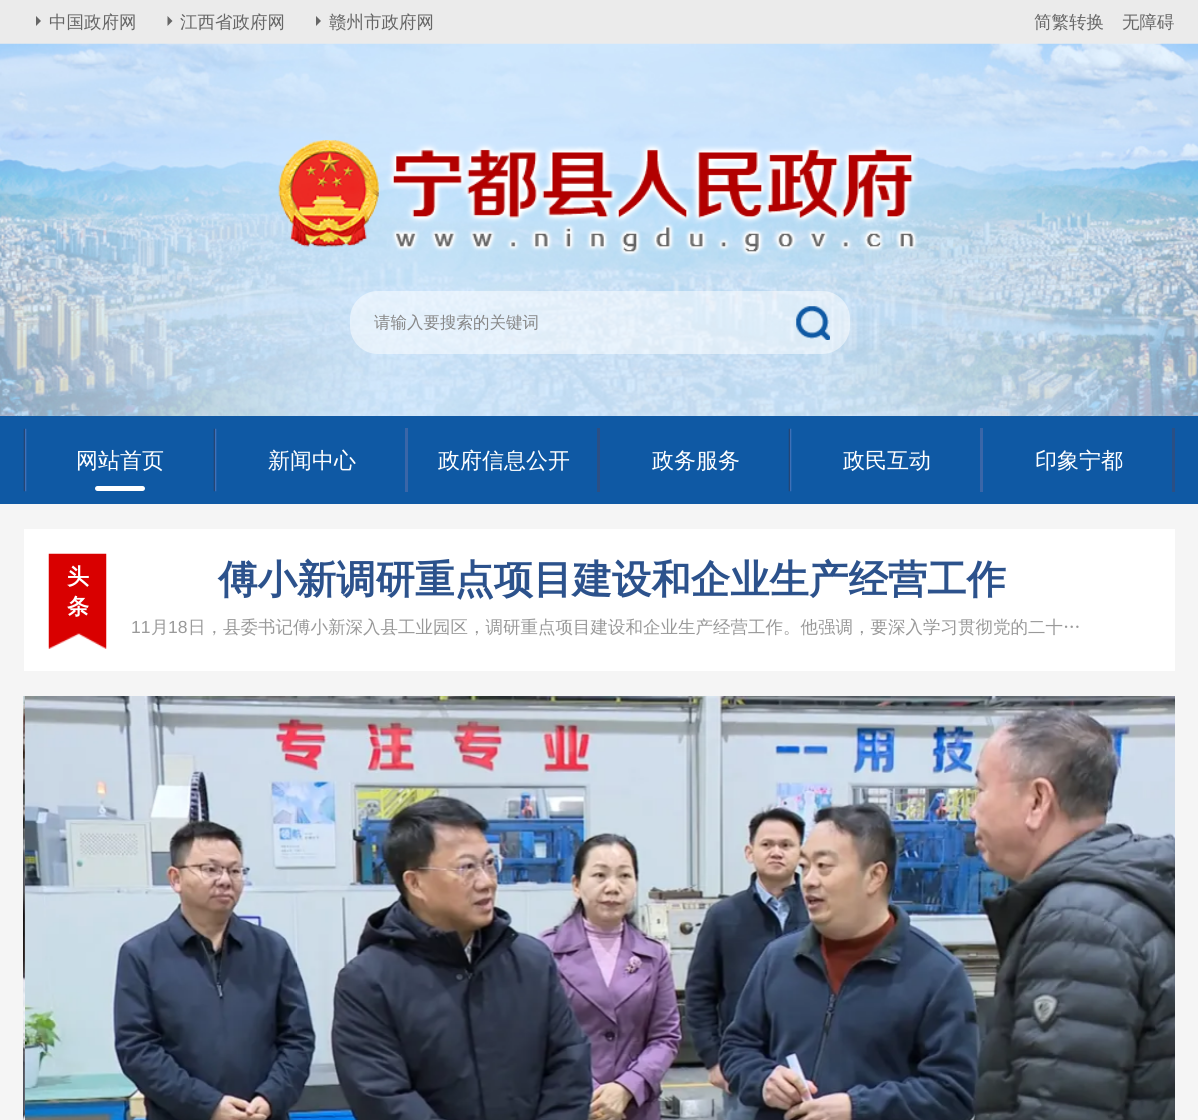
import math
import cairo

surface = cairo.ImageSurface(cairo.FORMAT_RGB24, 1198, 1120)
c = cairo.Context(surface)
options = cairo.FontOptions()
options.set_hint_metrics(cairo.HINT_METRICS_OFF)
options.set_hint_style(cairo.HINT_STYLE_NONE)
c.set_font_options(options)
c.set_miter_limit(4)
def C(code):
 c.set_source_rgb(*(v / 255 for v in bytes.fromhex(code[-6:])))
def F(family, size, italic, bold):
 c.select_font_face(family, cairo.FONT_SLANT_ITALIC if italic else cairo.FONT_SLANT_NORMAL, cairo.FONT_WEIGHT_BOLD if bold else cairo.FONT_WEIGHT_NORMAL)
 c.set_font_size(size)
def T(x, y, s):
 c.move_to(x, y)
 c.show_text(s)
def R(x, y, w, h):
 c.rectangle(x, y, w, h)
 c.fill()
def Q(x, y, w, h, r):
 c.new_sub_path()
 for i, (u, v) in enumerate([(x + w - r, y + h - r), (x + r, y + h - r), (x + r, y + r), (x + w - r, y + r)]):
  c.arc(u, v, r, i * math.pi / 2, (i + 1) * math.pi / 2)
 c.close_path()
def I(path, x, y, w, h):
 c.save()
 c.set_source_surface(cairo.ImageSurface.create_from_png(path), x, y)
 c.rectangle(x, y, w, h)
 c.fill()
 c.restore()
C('f5f5f5')
c.paint()
C('ebebeb')
R(0,0,1198,44)
C('666666')
c.new_path()
c.move_to(36,26)
c.line_to(36,16)
c.line_to(41,21)
c.close_path()
c.fill()
F('WenQuanYi Zen Hei Medium',17.5,0,0)
T(49,28,'中国政府网')
c.new_path()
c.move_to(167.5,26)
c.line_to(167.5,16)
c.line_to(172.5,21)
c.close_path()
c.fill()
T(180,28,'江西省政府网')
c.new_path()
c.move_to(316,26)
c.line_to(316,16)
c.line_to(321,21)
c.close_path()
c.fill()
T(329,28,'赣州市政府网')
T(1034,28,'简繁转换')
T(1122,28,'无障碍')
I('1.png',0,43,1198,373)
I('2.png',278,140,640,116)
c.set_source_rgba(1,1,1,0.5)
Q(350,291,500,63,28)
c.fill()
F('WenQuanYi Zen Hei Medium',16.5,0,0)
C('878787')
T(374,328,'请输入要搜索的关键词')
I('3.png',796,306,34,34)
C('0f59a4')
R(0,416,1198,88)
I('4.png',23,428,4,64)
F('WenQuanYi Zen Hei Medium',22,0,0)
C('ffffff')
T(76,468,'网站首页')
Q(95,486,50,5,2.5)
c.fill()
I('4.png',213,428,4,64)
T(268,468,'新闻中心')
C('3a66a8')
R(405,428,3,64)
C('ffffff')
T(438,468,'政府信息公开')
C('2b4f84')
R(597,428,3,64)
C('ffffff')
T(652,468,'政务服务')
I('4.png',788,428,4,64)
T(843,468,'政民互动')
C('3a66a8')
R(980,428,3,64)
C('ffffff')
T(1035,468,'印象宁都')
C('2b4f84')
R(1172,428,3,64)
C('ffffff')
R(24,529,1151,142)
I('5.png',48,553,59,96)
F('WenQuanYi Zen Hei',22,0,1)
T(67,584,'头')
T(67,614,'条')
F('WenQuanYi Zen Hei',39.4,0,1)
C('2c528c')
T(218,593,'傅小新调研重点项目建设和企业生产经营工作')
F('Liberation Sans',17.5,0,0)
C('999999')
T(131,633,'11')
F('WenQuanYi Zen Hei Medium',17.5,0,0)
T(151,633,'月')
F('Liberation Sans',17.5,0,0)
T(168,633,'18')
F('WenQuanYi Zen Hei Medium',17.5,0,0)
T(188,633,'日，县委书记傅小新深入县工业园区，调研重点项目建设和企业生产经营工作。他强调，要深入学习贯彻党的二十…')
I('6.png',23,696,2,424)
I('7.png',25,696,1150,424)
surface.write_to_png('o.png')
